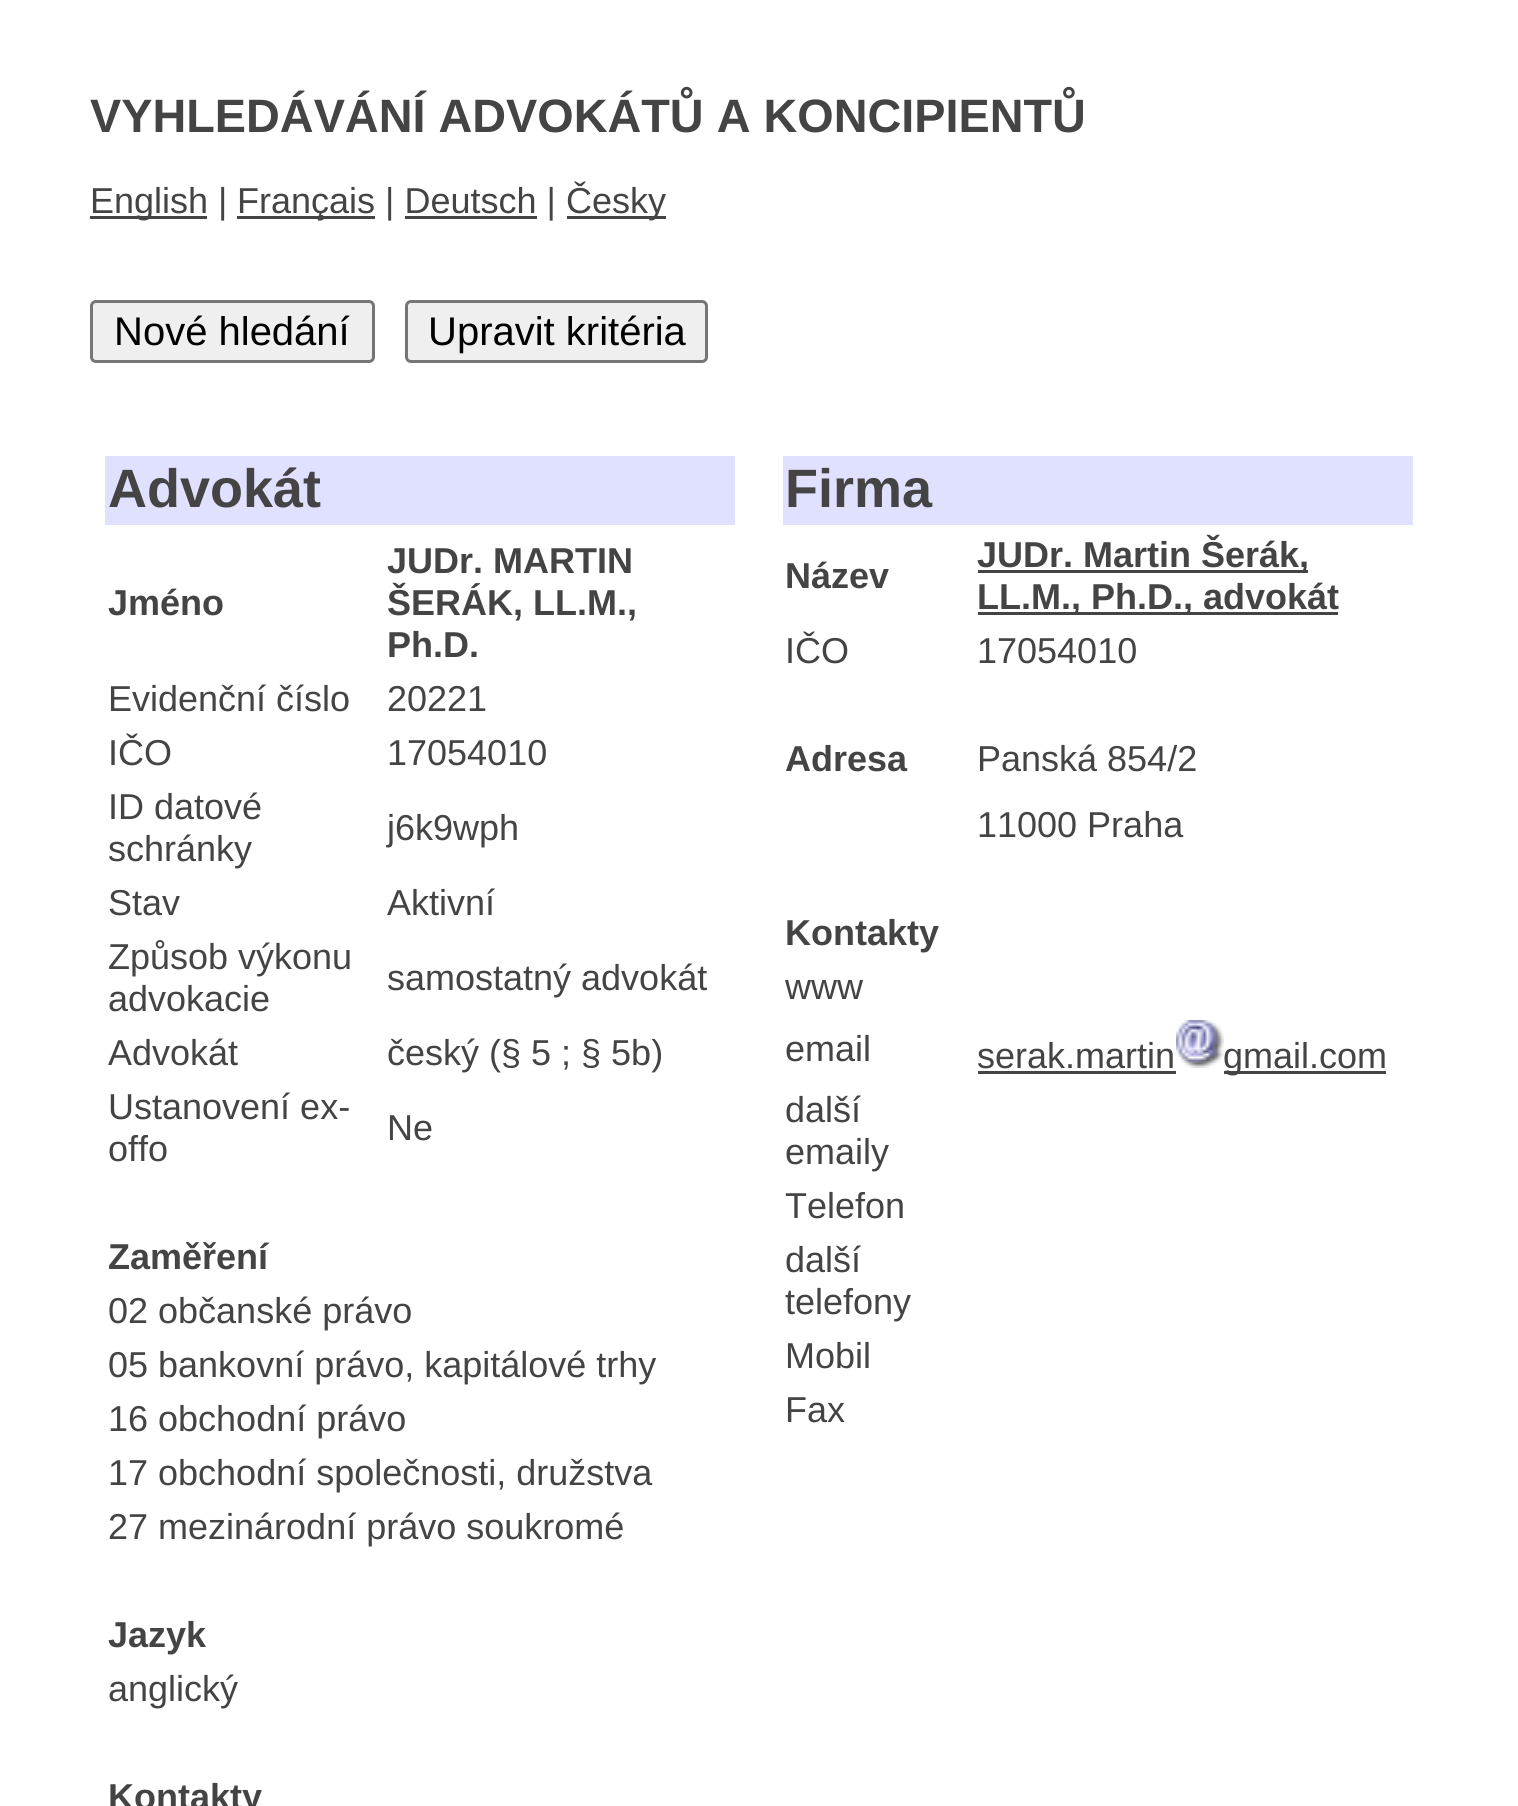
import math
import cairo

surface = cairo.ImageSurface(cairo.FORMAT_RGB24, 1518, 1806)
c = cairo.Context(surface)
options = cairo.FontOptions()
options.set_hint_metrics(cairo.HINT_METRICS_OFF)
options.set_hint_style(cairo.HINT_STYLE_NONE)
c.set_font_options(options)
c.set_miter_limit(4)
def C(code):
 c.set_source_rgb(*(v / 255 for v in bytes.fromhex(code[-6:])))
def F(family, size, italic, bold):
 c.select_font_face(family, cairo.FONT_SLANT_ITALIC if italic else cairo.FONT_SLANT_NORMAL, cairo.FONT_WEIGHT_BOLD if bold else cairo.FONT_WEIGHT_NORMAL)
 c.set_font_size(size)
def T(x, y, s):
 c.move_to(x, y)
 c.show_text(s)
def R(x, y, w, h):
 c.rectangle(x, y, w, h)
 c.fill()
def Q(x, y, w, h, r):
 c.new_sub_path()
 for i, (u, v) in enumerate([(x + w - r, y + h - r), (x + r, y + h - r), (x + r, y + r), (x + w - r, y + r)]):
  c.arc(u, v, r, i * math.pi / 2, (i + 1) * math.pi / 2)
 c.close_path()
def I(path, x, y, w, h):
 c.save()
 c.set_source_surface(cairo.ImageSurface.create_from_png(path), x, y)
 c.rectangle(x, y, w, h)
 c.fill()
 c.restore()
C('ffffff')
c.paint()
F('Liberation Sans',46.8,0,1)
C('444444')
T(90,132,'VYHLEDÁVÁNÍ ADVOKÁTŮ A KONCIPIENTŮ')
R(90,216,117,3)
F('Liberation Sans',36,0,0)
T(90,213,'English |')
R(237,216,138,3)
T(237,213,'Français | Deutsch |')
R(405,216,132,3)
R(567,216,99,3)
T(566,213,'Česky')
C('efefef')
Q(91.5,301.5,282,60,4.5)
c.fill_preserve()
C('767676')
c.set_line_width(3)
c.stroke()
F('Liberation Sans',40,0,0)
C('000000')
T(114,345,'Nové hledání')
C('efefef')
Q(406.5,301.5,300,60,4.5)
c.fill_preserve()
C('767676')
c.stroke()
C('000000')
T(428,345,'Upravit kritéria')
C('e0e0ff')
R(105,456,630,69)
F('Liberation Sans',54,0,1)
C('444444')
T(108,507,'Advokát')
F('Liberation Sans',36,0,1)
T(108,615,'Jméno')
T(387,573,'JUDr. MARTIN')
T(387,615,'ŠERÁK, LL.M.,')
T(387,657,'Ph.D.')
F('Liberation Sans',36,0,0)
T(108,711,'Evidenční číslo')
T(387,711,'20221')
T(108,765,'IČO')
T(387,765,'17054010')
T(108,819,'ID datové')
T(108,861,'schránky')
T(387,840,'j6k9wph')
T(108,915,'Stav')
T(387,915,'Aktivní')
T(108,969,'Způsob výkonu')
T(108,1011,'advokacie')
T(387,990,'samostatný advokát')
T(108,1065,'Advokát')
T(387,1065,'český (§ 5 ; § 5b)')
T(108,1119,'Ustanovení ex-')
T(108,1161,'offo')
T(387,1140,'Ne')
F('Liberation Sans',36,0,1)
T(108,1269,'Zaměření')
F('Liberation Sans',36,0,0)
T(108,1323,'02 občanské právo')
T(108,1377,'05 bankovní právo, kapitálové trhy')
T(108,1431,'16 obchodní právo')
T(108,1485,'17 obchodní společnosti, družstva')
T(108,1539,'27 mezinárodní právo soukromé')
F('Liberation Sans',36,0,1)
T(108,1647,'Jazyk')
F('Liberation Sans',36,0,0)
T(108,1701,'anglický')
F('Liberation Sans',36,0,1)
T(108,1809,'Kontakty')
C('e0e0ff')
R(783,456,630,69)
F('Liberation Sans',54,0,1)
C('444444')
T(785,507,'Firma')
F('Liberation Sans',36,0,1)
T(785,588,'Název')
R(978,570,330,3)
T(977,567,'JUDr. Martin Šerák,')
R(978,612,360,3)
T(977,609,'LL.M., Ph.D., advokát')
F('Liberation Sans',36,0,0)
T(785,663,'IČO')
T(977,663,'17054010')
F('Liberation Sans',36,0,1)
T(785,771,'Adresa')
F('Liberation Sans',36,0,0)
T(977,771,'Panská 854/2')
T(977,837,'11000 Praha')
F('Liberation Sans',36,0,1)
T(785,945,'Kontakty')
F('Liberation Sans',36,0,0)
T(785,999,'www')
T(785,1061,'email')
T(977,1068,'serak.martin')
R(978,1071,198,3)
I('1.png',1176,1020,48,48)
R(1224,1071,162,3)
T(1223,1068,'gmail.com')
T(785,1122,'další')
T(785,1164,'emaily')
T(785,1218,'Telefon')
T(785,1272,'další')
T(785,1314,'telefony')
T(785,1368,'Mobil')
T(785,1422,'Fax')
surface.write_to_png('o.png')
